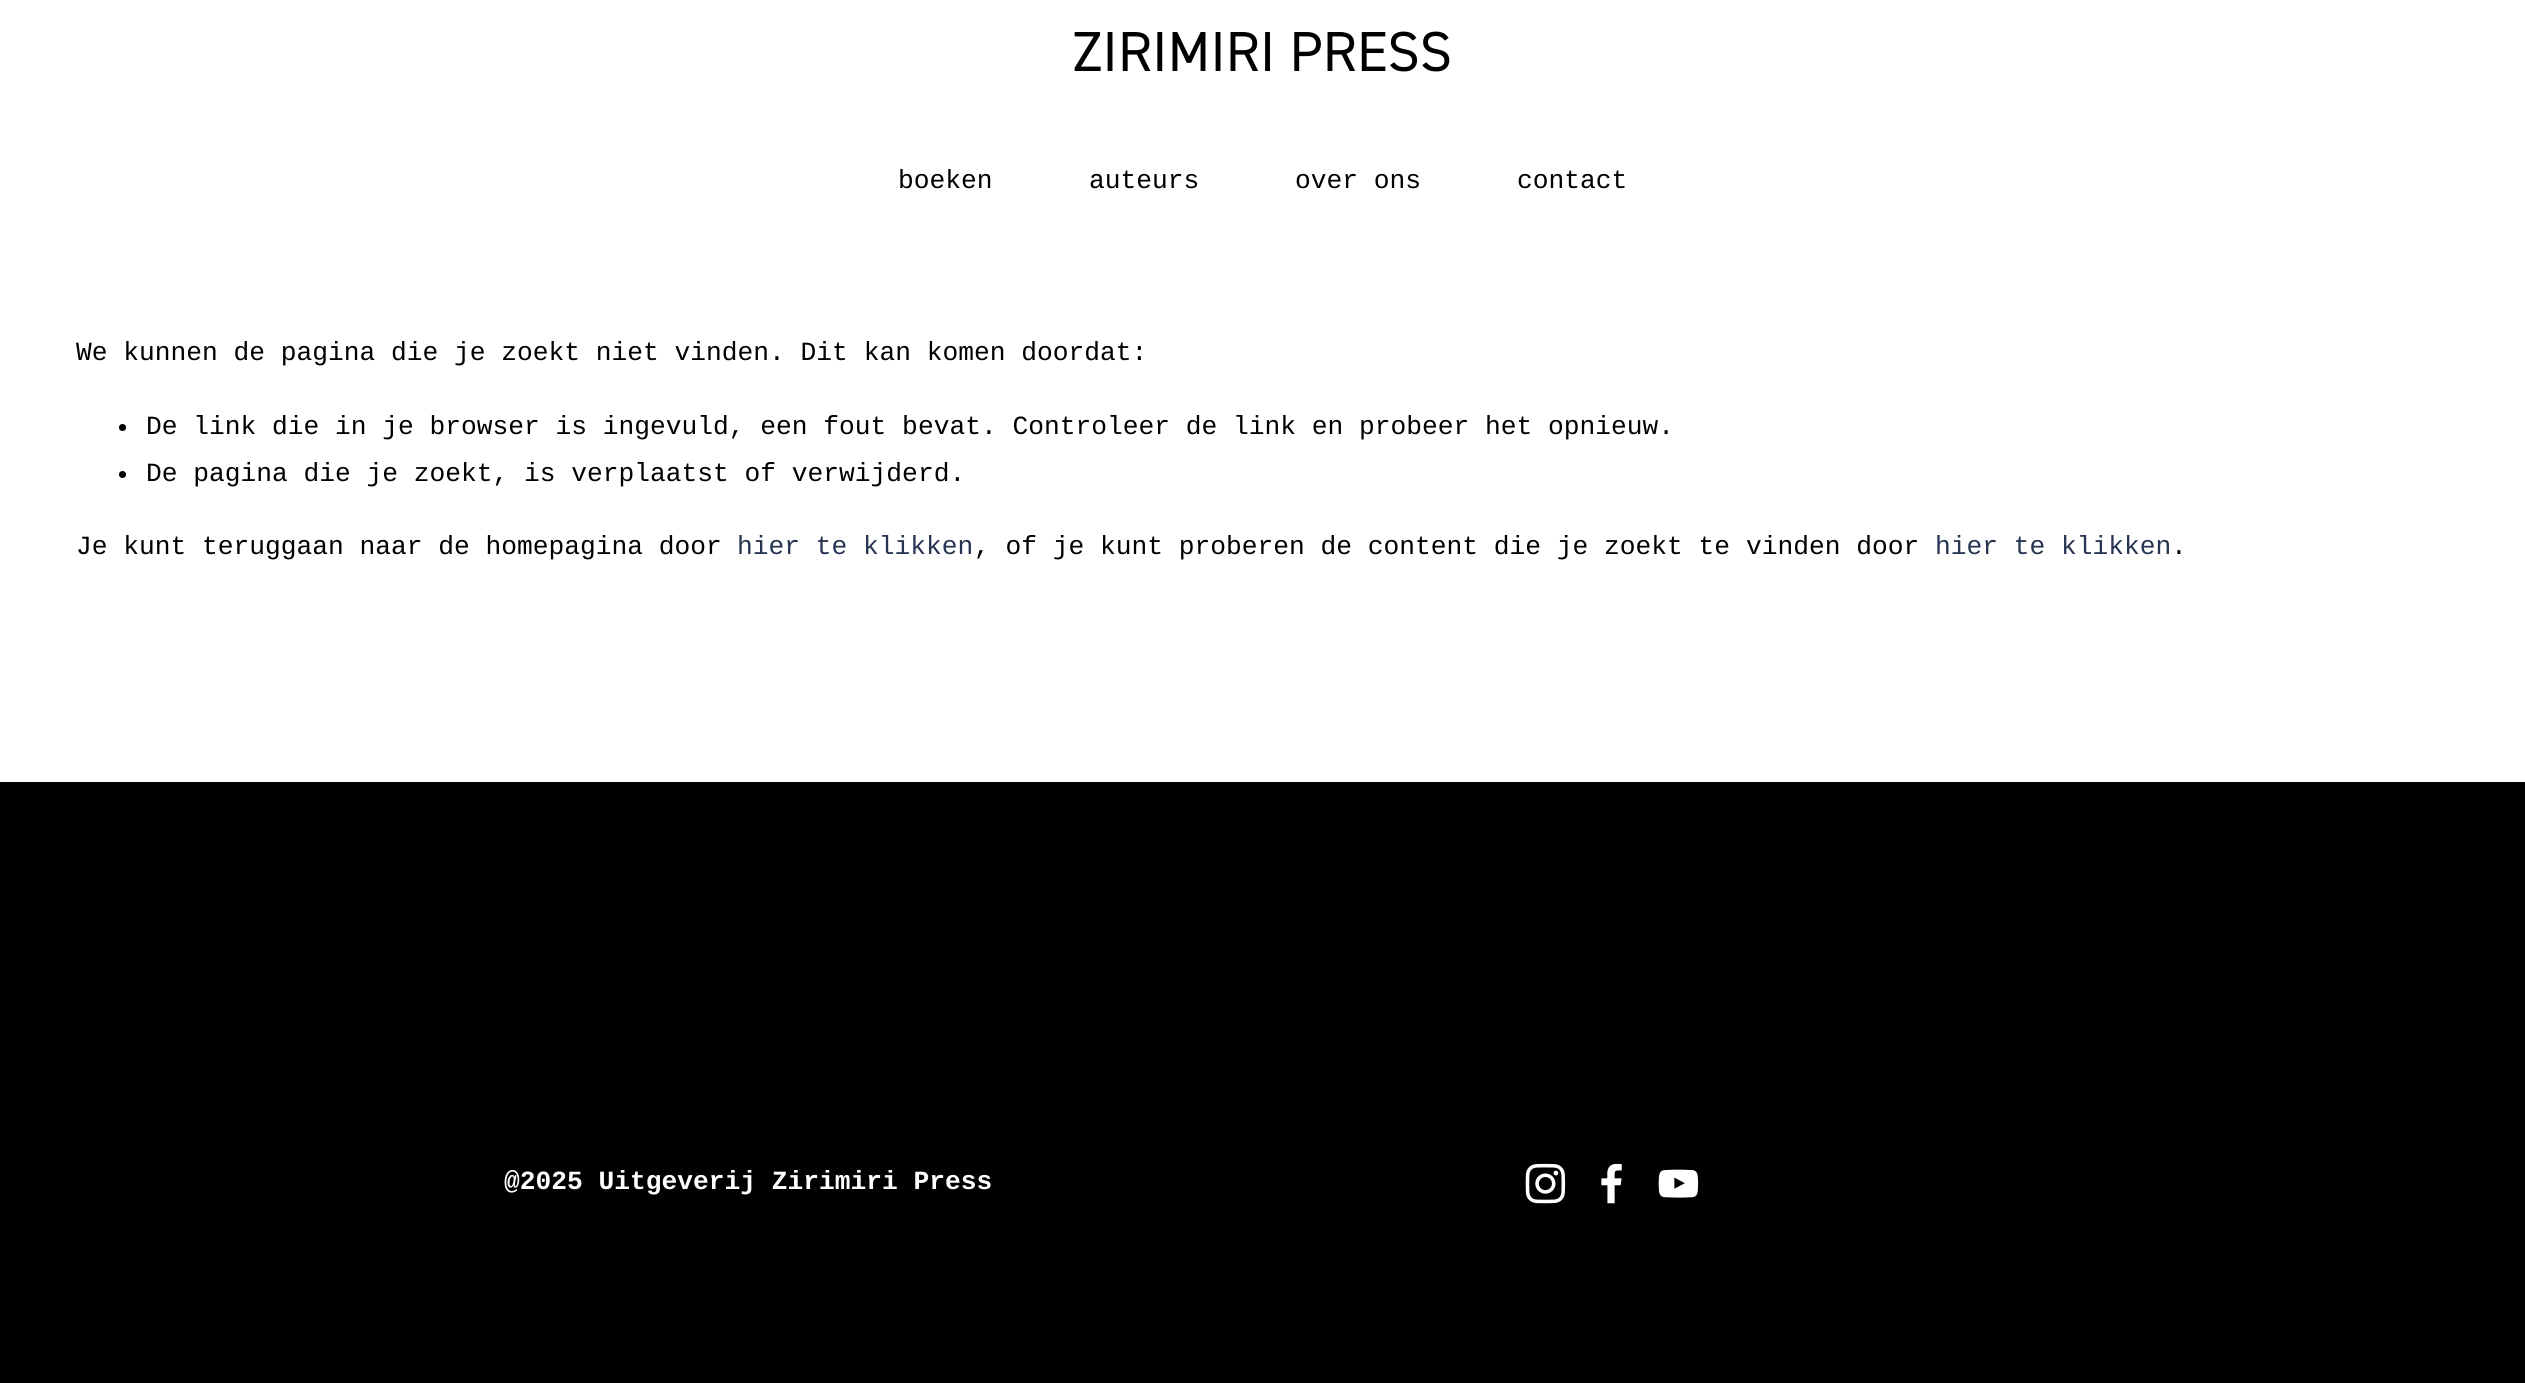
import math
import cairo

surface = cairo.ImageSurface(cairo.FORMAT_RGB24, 2525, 1383)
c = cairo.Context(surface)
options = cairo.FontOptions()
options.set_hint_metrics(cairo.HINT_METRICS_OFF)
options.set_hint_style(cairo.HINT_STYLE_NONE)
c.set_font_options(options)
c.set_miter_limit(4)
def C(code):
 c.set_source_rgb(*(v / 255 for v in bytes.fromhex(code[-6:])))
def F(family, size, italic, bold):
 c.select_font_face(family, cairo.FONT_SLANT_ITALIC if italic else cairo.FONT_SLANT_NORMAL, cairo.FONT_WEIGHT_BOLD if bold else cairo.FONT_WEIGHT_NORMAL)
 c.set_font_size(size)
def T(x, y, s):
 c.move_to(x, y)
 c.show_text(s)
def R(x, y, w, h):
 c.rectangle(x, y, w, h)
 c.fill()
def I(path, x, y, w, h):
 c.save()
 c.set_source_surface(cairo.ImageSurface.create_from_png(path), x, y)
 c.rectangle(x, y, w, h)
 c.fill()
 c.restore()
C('ffffff')
c.paint()
F('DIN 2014',56.5,0,0)
C('000000')
T(1073,71,'ZIRIMIRI PRESS')
F('Liberation Mono',26.25,0,0)
T(898,188,'boeken')
T(1089,188,'auteurs')
T(1295,188,'over ons')
T(1517,188,'contact')
T(76,360,'We kunnen de pagina die je zoekt niet vinden. Dit kan komen doordat:')
c.new_path()
c.arc(122.5,427.5,3.5,0,2 * math.pi)
c.fill()
T(146,434,'De link die in je browser is ingevuld, een fout bevat. Controleer de link en probeer het opnieuw.')
c.new_path()
c.arc(122.5,474.5,3.5,0,2 * math.pi)
c.fill()
T(146,481,'De pagina die je zoekt, is verplaatst of verwijderd.')
T(76,554,'Je kunt teruggaan naar de homepagina door')
C('253551')
T(737,554,'hier te klikken')
C('000000')
T(974,554,', of je kunt proberen de content die je zoekt te vinden door')
C('253551')
T(1935,554,'hier te klikken')
C('000000')
T(2171,554,'.')
R(0,782,2525,601)
F('Liberation Mono',26.25,0,1)
C('ffffff')
T(504,1189,'@2025 Uitgeverij Zirimiri Press')
I('1.png',1525,1163,41,41)
I('2.png',1601,1163,21,41)
I('3.png',1658,1169,41,29)
surface.write_to_png('o.png')
